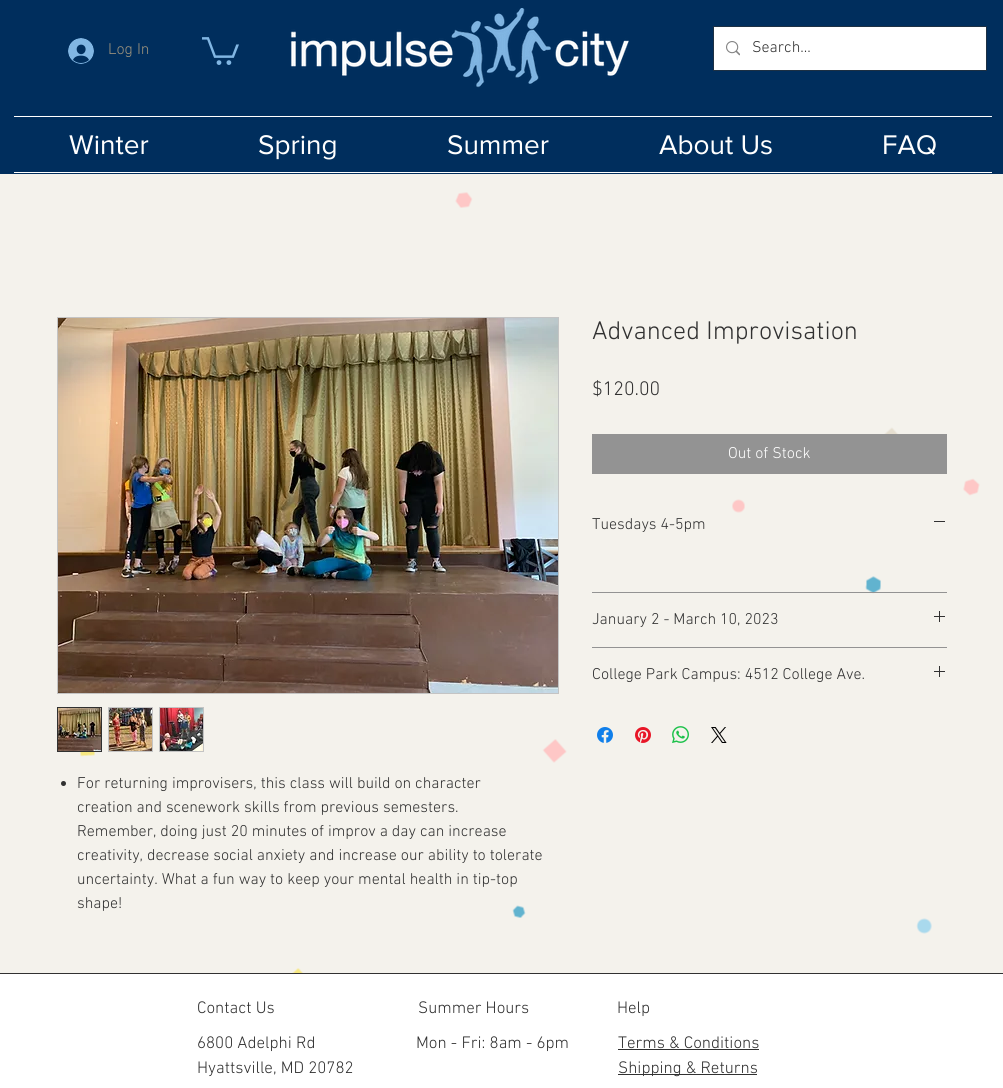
import math
import cairo

surface = cairo.ImageSurface(cairo.FORMAT_RGB24, 1003, 1088)
c = cairo.Context(surface)
options = cairo.FontOptions()
options.set_hint_metrics(cairo.HINT_METRICS_OFF)
options.set_hint_style(cairo.HINT_STYLE_NONE)
c.set_font_options(options)
c.set_miter_limit(4)
def C(code):
 c.set_source_rgb(*(v / 255 for v in bytes.fromhex(code[-6:])))
def F(family, size, italic, bold):
 c.select_font_face(family, cairo.FONT_SLANT_ITALIC if italic else cairo.FONT_SLANT_NORMAL, cairo.FONT_WEIGHT_BOLD if bold else cairo.FONT_WEIGHT_NORMAL)
 c.set_font_size(size)
def T(x, y, s):
 c.move_to(x, y)
 c.show_text(s)
def R(x, y, w, h):
 c.rectangle(x, y, w, h)
 c.fill()
def I(path, x, y, w, h):
 c.save()
 c.set_source_surface(cairo.ImageSurface.create_from_png(path), x, y)
 c.rectangle(x, y, w, h)
 c.fill()
 c.restore()
C('ffffff')
c.paint()
C('002e5d')
R(0,0,1003,174)
I('1.png',68,38,26,26)
F('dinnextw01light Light',16,0,0)
C('99907c')
T(108,54,'Log In')
I('2.png',202,37,37,28)
I('3.png',290,8,339,80)
c.rectangle(713.5,26.5,273,44)
C('1d3043')
c.set_line_width(1)
c.stroke()
C('ffffff')
R(714,27,272,43)
I('4.png',726,41,14,15)
C('313131')
T(752,52,'Search...')
C('ffffff')
R(14,116,978,1)
R(14,172,978,1)
F('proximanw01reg',28,0,0)
T(69,154,'Winter')
T(258,154,'Spring')
T(447,154,'Summer')
T(659,154,'About Us')
T(882,154,'FAQ')
I('14.png',0,174,1003,799)
F('dinnextw01light Light',26,0,0)
C('313131')
T(592,339,'Advanced Improvisation')
F('dinnextw01light Light',20,0,0)
T(592,395,'$120.00')
C('939393')
R(592,434,355,40)
F('dinnextw01light Light',16,0,0)
C('ffffff')
T(728,458,'Out of Stock')
C('939393')
R(592,592,355,1)
C('313131')
T(592,529,'Tuesdays 4-5pm')
R(934,521,11,1)
C('939393')
R(592,647,355,1)
C('313131')
T(592,624,'January 2 - March 10, 2023')
I('5.png',934,611,11,11)
T(592,679,'College Park Campus: 4512 College Ave.')
I('5.png',934,666,11,11)
I('6.png',597,727,16,16)
I('7.png',635,727,16,16)
I('8.png',672,726,17,17)
I('9.png',711,727,16,16)
c.rectangle(57.5,317.5,501,376)
C('c4c4c4')
c.stroke()
I('10.png',58,318,500,375)
c.rectangle(57.5,707.5,44,44)
C('313131')
c.stroke()
I('11.png',58,708,43,43)
C('c4c4c4')
R(108,707,45,45)
I('12.png',109,708,43,43)
R(159,707,45,45)
I('13.png',160,708,43,43)
C('313131')
c.arc(63.5,783.5,2.5,0,2 * math.pi)
c.fill()
T(77,788,'For returning improvisers, this class will build on character')
T(77,812,'creation and scenework skills from previous semesters.')
T(77,836,'Remember, doing just 20 minutes of improv a day can increase')
T(77,860,'creativity, decrease social anxiety and increase our ability to tolerate')
T(77,884,'uncertainty. What a fun way to keep your mental health in tip-top')
T(77,908,'shape!')
R(0,973,1003,1)
F('dinnextw01light Light',17,0,0)
T(197,1013,'Contact Us')
T(418,1013,'Summer Hours')
T(617,1013,'Help')
T(197,1048,'6800 Adelphi Rd')
T(197,1073,'Hyattsville, MD 20782')
T(416,1048,'Mon - Fri: 8am - 6pm')
T(618,1048,'Terms & Conditions')
R(618,1049,141,1)
R(618,1074,139,1)
T(618,1073,'Shipping & Returns')
surface.write_to_png('o.png')
